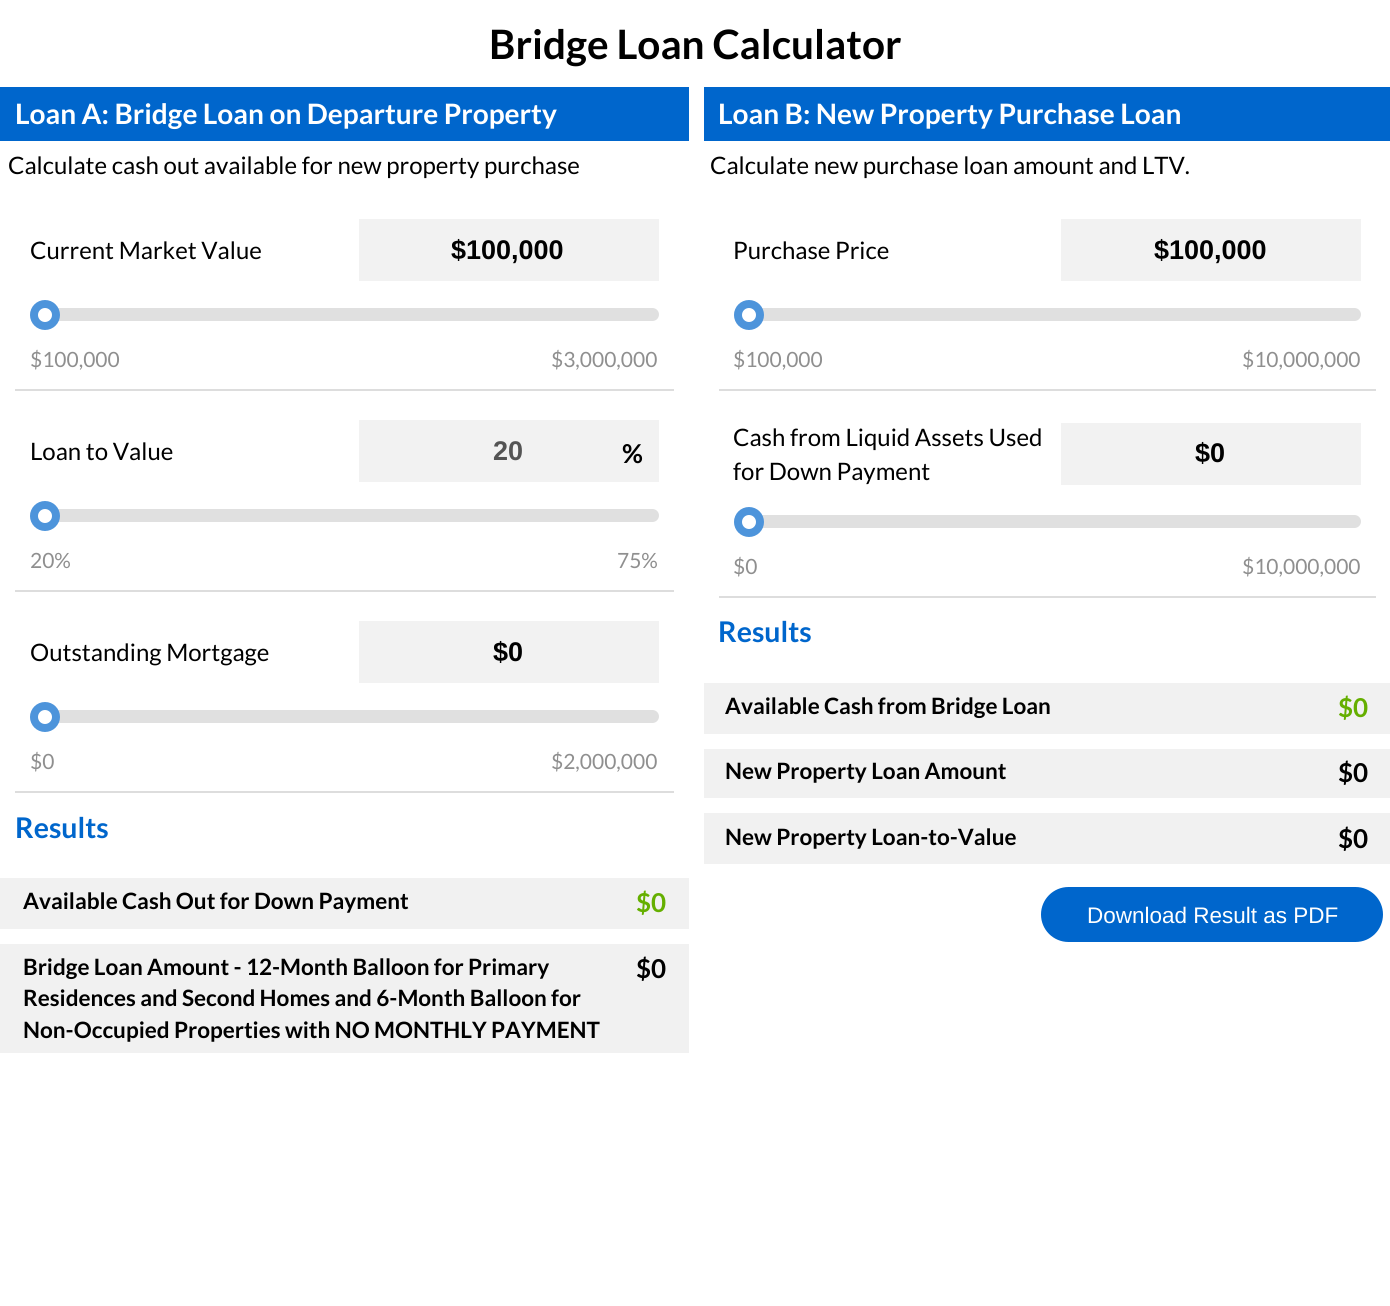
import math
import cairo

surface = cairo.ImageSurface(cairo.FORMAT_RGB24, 1390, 1306)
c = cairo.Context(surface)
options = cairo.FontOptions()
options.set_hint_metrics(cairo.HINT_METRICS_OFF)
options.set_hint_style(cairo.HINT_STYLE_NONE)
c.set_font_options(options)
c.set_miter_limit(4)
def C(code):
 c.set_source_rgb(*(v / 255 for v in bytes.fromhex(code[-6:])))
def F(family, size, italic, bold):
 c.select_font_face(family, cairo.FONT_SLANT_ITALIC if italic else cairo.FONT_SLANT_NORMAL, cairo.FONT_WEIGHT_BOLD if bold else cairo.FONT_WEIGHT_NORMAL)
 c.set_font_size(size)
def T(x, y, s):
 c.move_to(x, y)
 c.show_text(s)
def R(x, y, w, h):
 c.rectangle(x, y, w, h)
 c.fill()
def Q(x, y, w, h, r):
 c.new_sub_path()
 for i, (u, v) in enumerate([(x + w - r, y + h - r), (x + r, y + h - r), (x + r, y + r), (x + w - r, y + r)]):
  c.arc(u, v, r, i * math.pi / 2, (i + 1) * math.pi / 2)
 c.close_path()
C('ffffff')
c.paint()
F('Lato',40.5,0,1)
C('000000')
T(489,59,'Bridge Loan Calculator')
C('0066cc')
R(0,87,689,54)
F('Lato',28.1,0,1)
C('ffffff')
T(15,124,'Loan A: Bridge Loan on Departure Property')
F('Lato',24,0,0)
C('000000')
T(8,174,'Calculate cash out available for new property purchase')
C('dddddd')
R(15,389,659,2)
C('000000')
T(30,259,'Current Market Value')
C('f2f2f2')
R(359,219,300,62)
F('Liberation Sans',27,0,1)
C('000000')
T(451,259,'$100,000')
C('e0e0e0')
Q(30,308,629,13,6.5)
c.fill()
C('ffffff')
c.arc(45,315,11,0,2 * math.pi)
c.fill_preserve()
C('4d94db')
c.set_line_width(8)
c.stroke()
F('Lato',21,0,0)
C('8f8f8f')
T(30,367,'$100,000')
T(551,367,'$3,000,000')
C('dddddd')
R(15,590,659,2)
F('Lato',24,0,0)
C('000000')
T(30,460,'Loan to Value')
C('f2f2f2')
R(359,420,300,62)
F('Liberation Sans',27,0,1)
C('545454')
T(493,460,'20')
F('Lato',26,0,1)
C('000000')
T(622,463,'%')
C('e0e0e0')
Q(30,509,629,13,6.5)
c.fill()
C('ffffff')
c.arc(45,516,11,0,2 * math.pi)
c.fill_preserve()
C('4d94db')
c.stroke()
F('Lato',21,0,0)
C('8f8f8f')
T(30,568,'20%')
T(617,568,'75%')
C('dddddd')
R(15,791,659,2)
F('Lato',24,0,0)
C('000000')
T(30,661,'Outstanding Mortgage')
C('f2f2f2')
R(359,621,300,62)
F('Liberation Sans',27,0,1)
C('000000')
T(493,661,'$0')
C('e0e0e0')
Q(30,710,629,13,6.5)
c.fill()
C('ffffff')
c.arc(45,717,11,0,2 * math.pi)
c.fill_preserve()
C('4d94db')
c.stroke()
F('Lato',21,0,0)
C('8f8f8f')
T(30,769,'$0')
T(551,769,'$2,000,000')
F('Lato',28.5,0,1)
C('0066cc')
T(15,838,'Results')
C('f1f1f1')
R(0,878,689,51)
F('Lato',22.5,0,1)
C('000000')
T(23,909,'Available Cash Out for Down Payment')
F('Lato',26,0,1)
C('65af00')
T(636,912,'$0')
C('f1f1f1')
R(0,944,689,109)
F('Lato',22.5,0,1)
C('000000')
T(23,975,'Bridge Loan Amount - 12-Month Balloon for Primary')
T(23,1006,'Residences and Second Homes and 6-Month Balloon for')
T(23,1038,'Non-Occupied Properties with NO MONTHLY PAYMENT')
F('Lato',26,0,1)
T(636,978,'$0')
C('0066cc')
R(704,87,686,54)
F('Lato',28.1,0,1)
C('ffffff')
T(718,124,'Loan B: New Property Purchase Loan')
F('Lato',24,0,0)
C('000000')
T(710,174,'Calculate new purchase loan amount and LTV.')
C('dddddd')
R(719,389,657,2)
C('000000')
T(733,259,'Purchase Price')
C('f2f2f2')
R(1061,219,300,62)
F('Liberation Sans',27,0,1)
C('000000')
T(1154,259,'$100,000')
C('e0e0e0')
Q(734,308,627,13,6.5)
c.fill()
C('ffffff')
c.arc(749,315,11,0,2 * math.pi)
c.fill_preserve()
C('4d94db')
c.stroke()
F('Lato',21,0,0)
C('8f8f8f')
T(733,367,'$100,000')
T(1242,367,'$10,000,000')
C('dddddd')
R(719,596,657,2)
F('Lato',24,0,0)
C('000000')
T(733,446,'Cash from Liquid Assets Used')
T(733,480,'for Down Payment')
C('f2f2f2')
R(1061,423,300,62)
F('Liberation Sans',27,0,1)
C('000000')
T(1195,462,'$0')
C('e0e0e0')
Q(734,515,627,13,6.5)
c.fill()
C('ffffff')
c.arc(749,522,11,0,2 * math.pi)
c.fill_preserve()
C('4d94db')
c.stroke()
F('Lato',21,0,0)
C('8f8f8f')
T(733,574,'$0')
T(1242,574,'$10,000,000')
F('Lato',28.5,0,1)
C('0066cc')
T(718,642,'Results')
C('f1f1f1')
R(704,683,686,51)
F('Lato',22.5,0,1)
C('000000')
T(725,714,'Available Cash from Bridge Loan')
F('Lato',26,0,1)
C('65af00')
T(1338,717,'$0')
C('f1f1f1')
R(704,749,686,49)
F('Lato',22.5,0,1)
C('000000')
T(725,779,'New Property Loan Amount')
F('Lato',26,0,1)
T(1338,782,'$0')
C('f1f1f1')
R(704,813,686,51)
F('Lato',22.5,0,1)
C('000000')
T(725,845,'New Property Loan-to-Value')
F('Lato',26,0,1)
T(1338,848,'$0')
C('0066cc')
Q(1041,887,342,55,27.5)
c.fill()
F('Liberation Sans',22.5,0,0)
C('ffffff')
T(1087,923,'Download Result as PDF')
surface.write_to_png('o.png')
